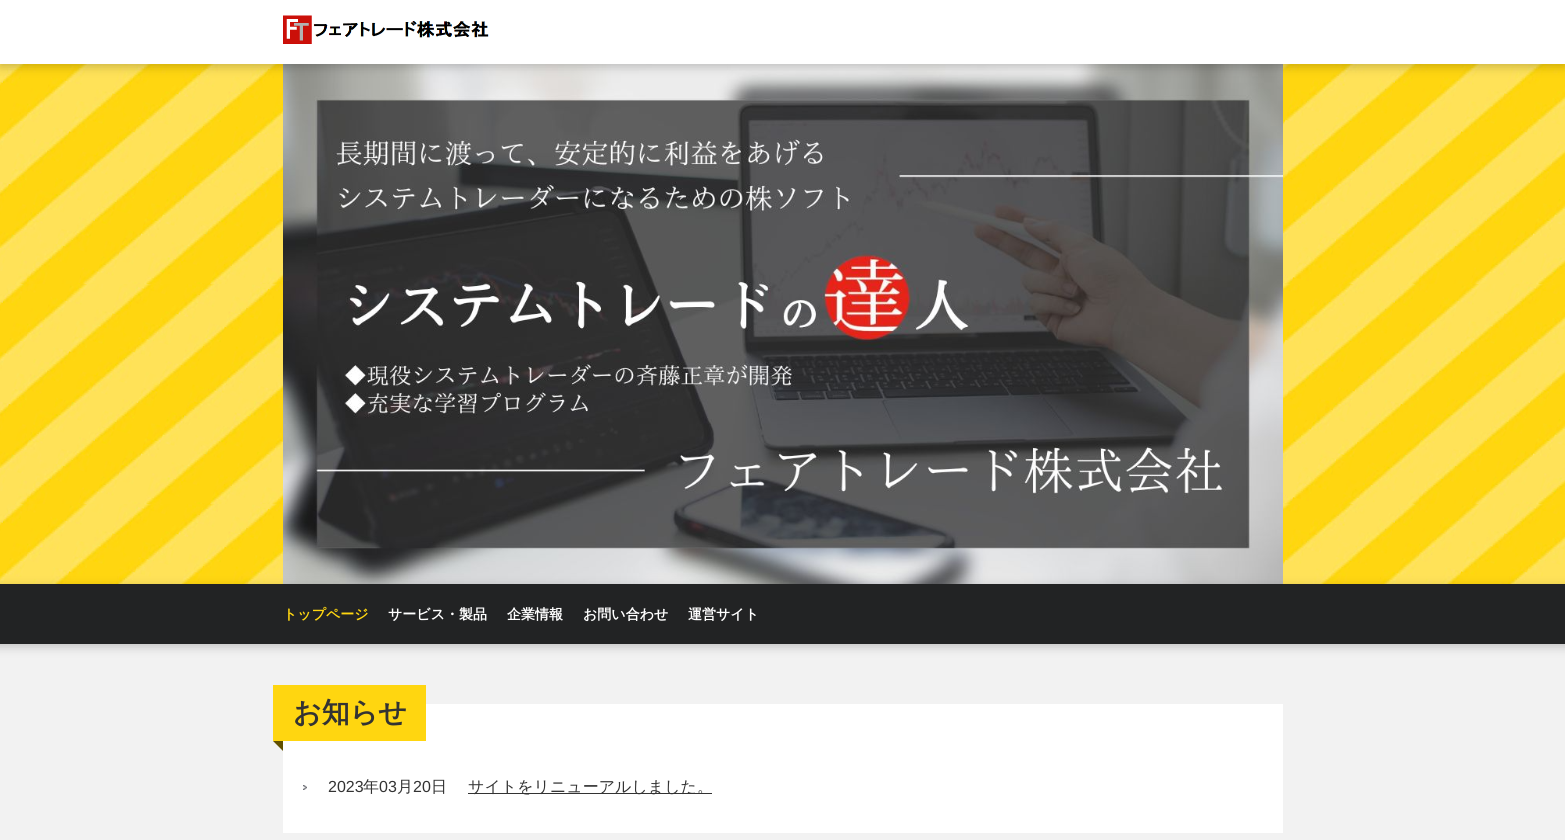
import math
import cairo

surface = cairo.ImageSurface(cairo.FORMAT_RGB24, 1565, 840)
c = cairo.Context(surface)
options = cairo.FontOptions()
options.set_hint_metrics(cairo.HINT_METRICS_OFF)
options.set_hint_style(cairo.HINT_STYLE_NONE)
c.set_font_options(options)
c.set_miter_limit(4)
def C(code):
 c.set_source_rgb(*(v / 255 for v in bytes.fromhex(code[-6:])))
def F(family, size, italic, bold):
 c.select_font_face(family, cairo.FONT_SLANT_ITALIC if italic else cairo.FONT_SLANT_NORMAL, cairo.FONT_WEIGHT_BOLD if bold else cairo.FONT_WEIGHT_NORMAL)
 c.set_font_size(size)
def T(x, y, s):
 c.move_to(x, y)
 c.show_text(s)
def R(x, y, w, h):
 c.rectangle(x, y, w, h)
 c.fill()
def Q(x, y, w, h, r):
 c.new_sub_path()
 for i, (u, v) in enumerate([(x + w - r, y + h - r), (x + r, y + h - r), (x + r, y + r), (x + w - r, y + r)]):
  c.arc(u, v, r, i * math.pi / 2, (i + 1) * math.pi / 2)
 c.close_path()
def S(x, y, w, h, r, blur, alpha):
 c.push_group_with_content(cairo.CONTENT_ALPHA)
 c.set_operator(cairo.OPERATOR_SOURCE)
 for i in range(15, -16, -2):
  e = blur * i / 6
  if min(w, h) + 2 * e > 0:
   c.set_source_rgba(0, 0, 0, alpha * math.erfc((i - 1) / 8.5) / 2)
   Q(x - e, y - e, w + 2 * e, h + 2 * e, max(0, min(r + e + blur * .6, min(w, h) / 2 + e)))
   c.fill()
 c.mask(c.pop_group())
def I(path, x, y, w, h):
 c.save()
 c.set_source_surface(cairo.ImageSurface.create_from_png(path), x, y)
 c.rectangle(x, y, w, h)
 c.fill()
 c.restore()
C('f2f2f2')
c.paint()
I('2.png',0,64,1565,520)
I('3.png',283,64,1000,520)
C('000000')
S(0,3,1565,64,0,5,.2)
C('ffffff')
R(0,0,1565,64)
I('1.png',283,15,206,29)
C('000000')
S(-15,587,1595,60,0,5,.2)
C('222324')
R(0,584,1565,60)
F('WenQuanYi Zen Hei',14,0,1)
C('ffd610')
T(283,619,'トップページ')
C('ffffff')
T(388,619,'サービス・製品')
T(507,619,'企業情報')
T(583,619,'お問い合わせ')
T(688,619,'運営サイト')
R(283,704,1000,129)
C('ffd610')
R(273,685,153,56)
F('WenQuanYi Zen Hei',28,0,1)
C('333333')
T(293,722,'お知らせ')
C('615000')
c.new_path()
c.move_to(283,741)
c.line_to(283,751)
c.line_to(273,741)
c.close_path()
c.fill()
I('4.png',303,785,4,5)
F('Liberation Sans',16,0,0)
C('333333')
T(328,792,'2023')
F('WenQuanYi Zen Hei Medium',16,0,0)
T(363,792,'年')
F('Liberation Sans',16,0,0)
T(379,792,'03')
F('WenQuanYi Zen Hei Medium',16,0,0)
T(397,792,'月')
F('Liberation Sans',16,0,0)
T(413,792,'20')
F('WenQuanYi Zen Hei Medium',16,0,0)
T(431,792,'日')
R(468,793,244,1)
T(468,792,'サイトをリニューアルしました。')
surface.write_to_png('o.png')
